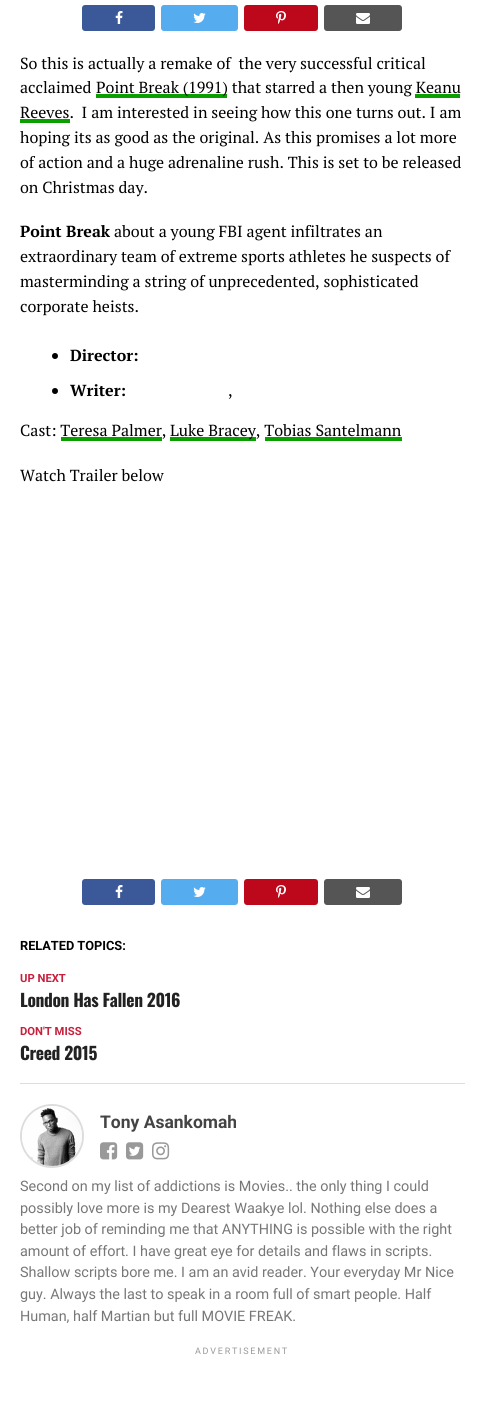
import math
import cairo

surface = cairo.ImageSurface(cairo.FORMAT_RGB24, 485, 1402)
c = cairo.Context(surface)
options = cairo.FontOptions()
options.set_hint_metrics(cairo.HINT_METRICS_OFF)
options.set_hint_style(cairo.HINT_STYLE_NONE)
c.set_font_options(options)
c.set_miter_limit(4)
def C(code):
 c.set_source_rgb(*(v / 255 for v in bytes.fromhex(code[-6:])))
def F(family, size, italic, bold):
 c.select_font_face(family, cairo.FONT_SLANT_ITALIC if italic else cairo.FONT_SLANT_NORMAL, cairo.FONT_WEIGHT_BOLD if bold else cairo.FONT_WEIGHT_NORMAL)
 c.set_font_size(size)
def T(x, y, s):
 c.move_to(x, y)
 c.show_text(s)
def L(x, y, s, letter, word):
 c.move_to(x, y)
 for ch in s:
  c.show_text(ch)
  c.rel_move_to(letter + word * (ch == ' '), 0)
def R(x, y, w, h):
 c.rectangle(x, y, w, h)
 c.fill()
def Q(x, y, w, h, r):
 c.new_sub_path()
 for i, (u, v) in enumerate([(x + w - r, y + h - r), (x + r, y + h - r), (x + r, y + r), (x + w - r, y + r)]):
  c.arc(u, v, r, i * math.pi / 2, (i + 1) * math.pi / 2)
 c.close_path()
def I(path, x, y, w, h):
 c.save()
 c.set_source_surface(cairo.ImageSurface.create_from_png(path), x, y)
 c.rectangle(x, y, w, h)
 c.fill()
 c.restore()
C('ffffff')
c.paint()
C('3b5998')
Q(82,5,73,26,3)
c.fill()
I('1.png',115,11,8,13)
C('55acee')
Q(161,5,77,26,3)
c.fill()
I('2.png',193,13,13,10)
C('bd081c')
Q(244,5,74,26,3)
c.fill()
I('3.png',276,11,10,13)
C('555555')
Q(324,5,78,26,3)
c.fill()
I('4.png',356,13,14,11)
F('PT Serif',16,0,0)
C('000000')
T(20,69,'So this is actually a remake of  the very successful critical')
T(20,93,'acclaimed')
C('0a9e01')
R(96,94,131,4)
C('000000')
T(96,93,'Point Break (1991) that starred a then young Keanu')
C('0a9e01')
R(20,119,50,4)
C('000000')
T(20,118,'Reeves.  I am interested in seeing how this one turns out. I am')
C('0a9e01')
R(415,94,45,4)
C('000000')
T(20,143,'hoping its as good as the original. As this promises a lot more')
T(20,168,'of action and a huge adrenaline rush. This is set to be released')
T(20,193,'on Christmas day.')
F('PT Serif',16,0,1)
T(20,237,'Point Break')
F('PT Serif',16,0,0)
T(114,237,'about a young FBI agent infiltrates an')
T(20,262,'extraordinary team of extreme sports athletes he suspects of')
T(20,287,'masterminding a string of unprecedented, sophisticated')
T(20,312,'corporate heists.')
c.new_path()
c.arc(55,356,3,0,2 * math.pi)
c.fill()
F('PT Serif',16,0,1)
T(70,361,'Director:')
c.new_path()
c.arc(55,391,3,0,2 * math.pi)
c.fill()
T(70,396,'Writer:')
F('PT Serif',16,0,0)
T(228,396,',')
T(20,436,'Cast: Teresa Palmer,')
C('0a9e01')
R(170,437,86,4)
C('000000')
T(170,436,'Luke Bracey, Tobias Santelmann')
C('0a9e01')
R(61,437,101,4)
R(265,437,137,4)
C('000000')
T(20,481,'Watch Trailer below')
C('3b5998')
Q(82,879,73,26,3)
c.fill()
I('1.png',115,885,8,13)
C('55acee')
Q(161,879,77,26,3)
c.fill()
I('2.png',193,887,13,10)
C('bd081c')
Q(244,879,74,26,3)
c.fill()
I('3.png',276,885,10,13)
C('555555')
Q(324,879,78,26,3)
c.fill()
I('4.png',356,887,14,11)
F('Roboto',12.75,0,1)
C('000000')
T(20,950,'RELATED TOPICS:')
C('dddddd')
R(20,1083,445,1)
F('Roboto',11.25,0,1)
C('c6203c')
T(20,982,'UP NEXT')
F('Oswald',17.5,0,1)
C('222222')
L(20,1007,'London Has Fallen 2016',-.35,0)
F('Roboto',11.25,0,1)
C('c6203c')
T(20,1035,'DON\'T MISS')
F('Oswald',17.5,0,1)
C('222222')
L(20,1060,'Creed 2015',-.35,0)
c.new_path()
c.arc(52,1136,31,0,2 * math.pi)
C('dddddd')
c.stroke()
I('5.png',22,1106,60,60)
F('Roboto',17.5,0,1)
C('444444')
T(100,1128,'Tony Asankomah')
I('6.png',100,1142,18,18)
I('7.png',126,1142,18,18)
I('8.png',152,1142,18,18)
F('Roboto',14.4,0,0)
C('777777')
T(20,1191,'Second on my list of addictions is Movies.. the only thing I could')
T(20,1213,'possibly love more is my Dearest Waakye lol. Nothing else does a')
T(20,1234,'better job of reminding me that ANYTHING is possible with the right')
T(20,1256,'amount of effort. I have great eye for details and flaws in scripts.')
T(20,1277,'Shallow scripts bore me. I am an avid reader. Your everyday Mr Nice')
T(20,1299,'guy. Always the last to speak in a room full of smart people. Half')
T(20,1321,'Human, half Martian but full MOVIE FREAK.')
F('Roboto',9,0,0)
C('999999')
L(195,1354,'ADVERTISEMENT',1.75,0)
surface.write_to_png('o.png')
